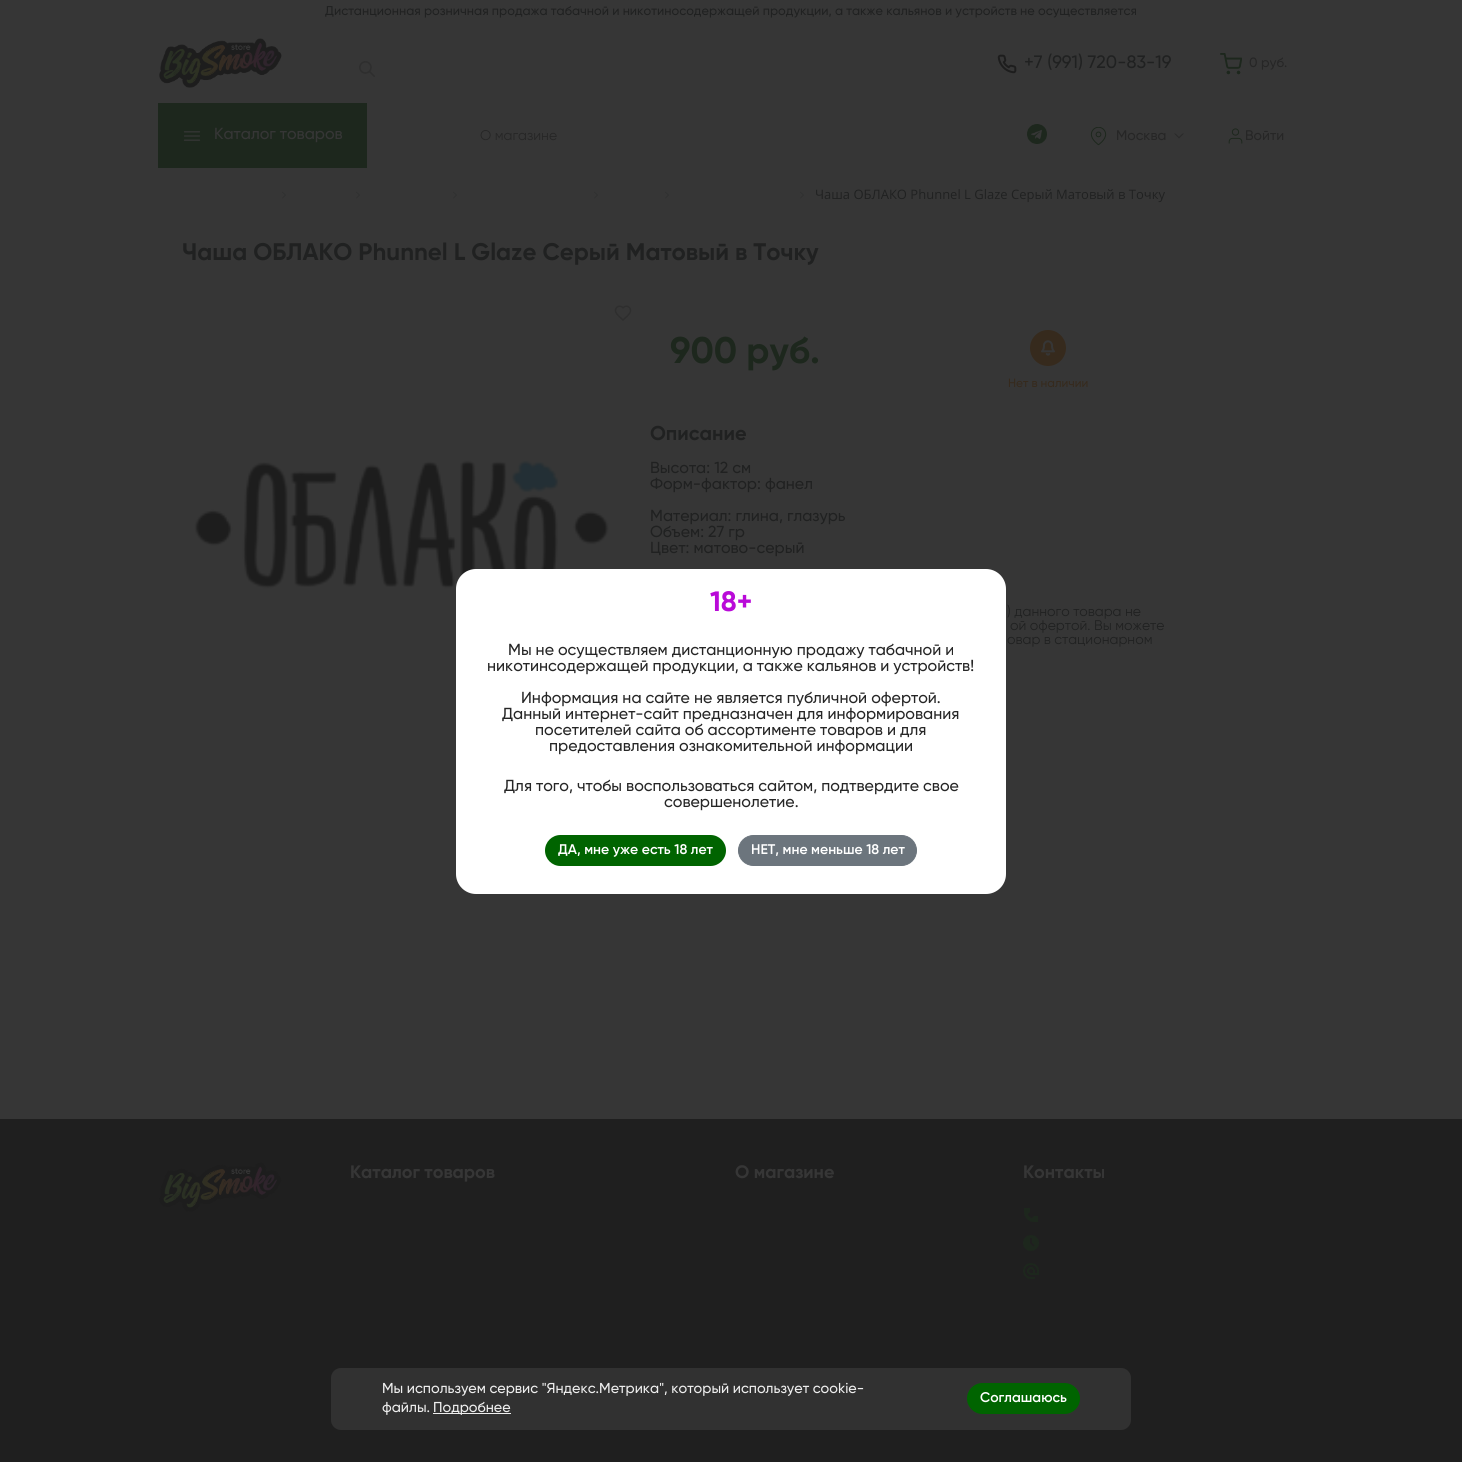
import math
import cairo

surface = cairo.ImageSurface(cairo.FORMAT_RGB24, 1462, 1462)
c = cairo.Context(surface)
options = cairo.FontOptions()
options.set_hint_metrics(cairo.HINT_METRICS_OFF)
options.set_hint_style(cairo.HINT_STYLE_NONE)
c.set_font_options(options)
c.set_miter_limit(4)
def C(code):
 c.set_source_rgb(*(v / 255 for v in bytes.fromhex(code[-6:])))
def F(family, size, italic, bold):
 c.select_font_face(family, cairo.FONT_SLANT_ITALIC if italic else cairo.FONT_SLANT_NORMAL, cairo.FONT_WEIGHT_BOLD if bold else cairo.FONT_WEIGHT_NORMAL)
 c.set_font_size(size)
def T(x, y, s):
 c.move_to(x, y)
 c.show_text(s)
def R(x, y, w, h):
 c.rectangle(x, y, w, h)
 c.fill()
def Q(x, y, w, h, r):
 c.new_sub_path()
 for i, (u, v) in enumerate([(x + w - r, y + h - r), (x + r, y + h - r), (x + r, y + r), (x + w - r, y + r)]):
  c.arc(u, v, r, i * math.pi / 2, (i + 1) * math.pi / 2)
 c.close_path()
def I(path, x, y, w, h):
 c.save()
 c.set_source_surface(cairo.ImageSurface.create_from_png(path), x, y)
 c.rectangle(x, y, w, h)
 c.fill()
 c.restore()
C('363636')
c.paint()
F('Gilroy Medium',12.8,0,0)
C('202121')
T(325,15,'Дистанционная розничная продажа табачной и никотиносодержащей продукции, а также кальянов и устройств не осуществляется')
I('1.png',159,38,123,50)
I('2.png',359,61,16,16)
I('3.png',997,54,20,20)
F('Gilroy Medium',18,0,0)
T(1024,68,'+7 (991) 720-83-19')
I('4.png',1220,53,22,22)
F('Gilroy Medium',13.5,0,0)
C('262626')
T(1249,67,'0 руб.')
C('1d271d')
R(158,103,209,65)
I('5.png',183,131,18,10)
F('Gilroy Medium',16,0,0)
C('363636')
T(214,139,'Каталог товаров')
F('Gilroy',14,0,0)
C('262626')
T(480,140,'О магазине')
I('6.png',1027,124,20,20)
I('7.png',1090,127,17,19)
F('Gilroy Medium',14,0,0)
T(1116,140,'Москва')
I('8.png',1174,133,10,6)
I('9.png',1228,128,15,16)
T(1245,140,'Войти')
I('10.png',282,191,4,8)
I('10.png',356,191,4,8)
I('10.png',453,191,4,8)
I('10.png',594,191,4,8)
I('10.png',665,191,4,8)
I('10.png',800,191,4,8)
F('Open Sans',13,0,0)
C('202121')
T(815,199,'Чаша ОБЛАКО Phunnel L Glaze Серый Матовый в Точку')
F('Gilroy',24,0,1)
T(182,260,'Чаша ОБЛАКО Phunnel L Glaze Серый Матовый в Точку')
I('11.png',614,305,18,16)
I('12.png',193,460,416,131)
F('Gilroy',37,0,1)
C('1d271d')
T(670,363,'900 руб.')
C('362a1d')
c.new_path()
c.arc(1048,348,19,0,2 * math.pi)
c.fill_preserve()
C('363636')
c.stroke()
I('13.png',1041,340,14,16)
F('Gilroy Medium',12,0,0)
C('362a1d')
T(1008,387,'Нет в наличии')
F('Gilroy',20,0,1)
C('202121')
T(650,440,'Описание')
F('Gilroy Medium',16,0,0)
T(650,473,'Высота: 12 см')
T(650,489,'Форм-фактор: фанел')
T(650,521,'Материал: глина, глазурь')
T(650,537,'Объем: 27 гр')
T(650,553,'Цвет: матово-серый')
F('Gilroy',14,0,0)
T(1007,616,') данного товара не')
T(1010,630,'ой офертой. Вы можете')
T(1007,644,'овар в стационарном')
C('1f1f1f')
R(0,1119,1462,343)
I('14.png',159,1162,123,50)
F('Gilroy',18,0,1)
C('363636')
T(350,1178,'Каталог товаров')
T(735,1178,'О магазине')
T(1023,1178,'Контакты')
I('15.png',1024,1208,14,14)
I('16.png',1023,1235,16,16)
I('17.png',1023,1263,16,16)
C('ffffff')
Q(456,569,550,325,20)
c.fill()
F('Gilroy',28,0,1)
C('b90ad8')
T(710,611,'18+')
F('Gilroy Medium',16,0,0)
C('262626')
T(508,655,'Мы не осуществляем дистанционную продажу табачной и')
T(487,671,'никотинсодержащей продукции, а также кальянов и устройств!')
T(521,703,'Информация на сайте не является публичной офертой.')
T(502,719,'Данный интернет-сайт предназначен для информирования')
T(535,735,'посетителей сайта об ассортименте товаров и для')
T(549,751,'предоставления ознакомительной информации')
T(504,791,'Для того, чтобы воспользоваться сайтом, подтвердите свое')
T(664,807,'совершенолетие.')
C('006400')
Q(545,835,181,31,15.5)
c.fill()
F('Gilroy SemiBold',14,0,0)
C('ffffff')
T(558,854,'ДА, мне уже есть 18 лет')
C('6c757d')
Q(738.5,835.5,178,30,15)
c.fill_preserve()
c.set_line_width(1)
c.stroke()
C('ffffff')
T(751,854,'НЕТ, мне меньше 18 лет')
C('313131')
Q(331,1368,800,62,10)
c.fill()
F('Gilroy Medium',14.4,0,0)
C('eeeeee')
T(382,1393,'Мы используем сервис "Яндекс.Метрика", который использует cookie-')
T(382,1412,'файлы.')
R(433,1413,78,1)
T(433,1412,'Подробнее')
C('006400')
Q(967,1383,113,31,15.5)
c.fill()
F('Gilroy SemiBold',14,0,0)
C('ffffff')
T(980,1402,'Соглашаюсь')
surface.write_to_png('o.png')
